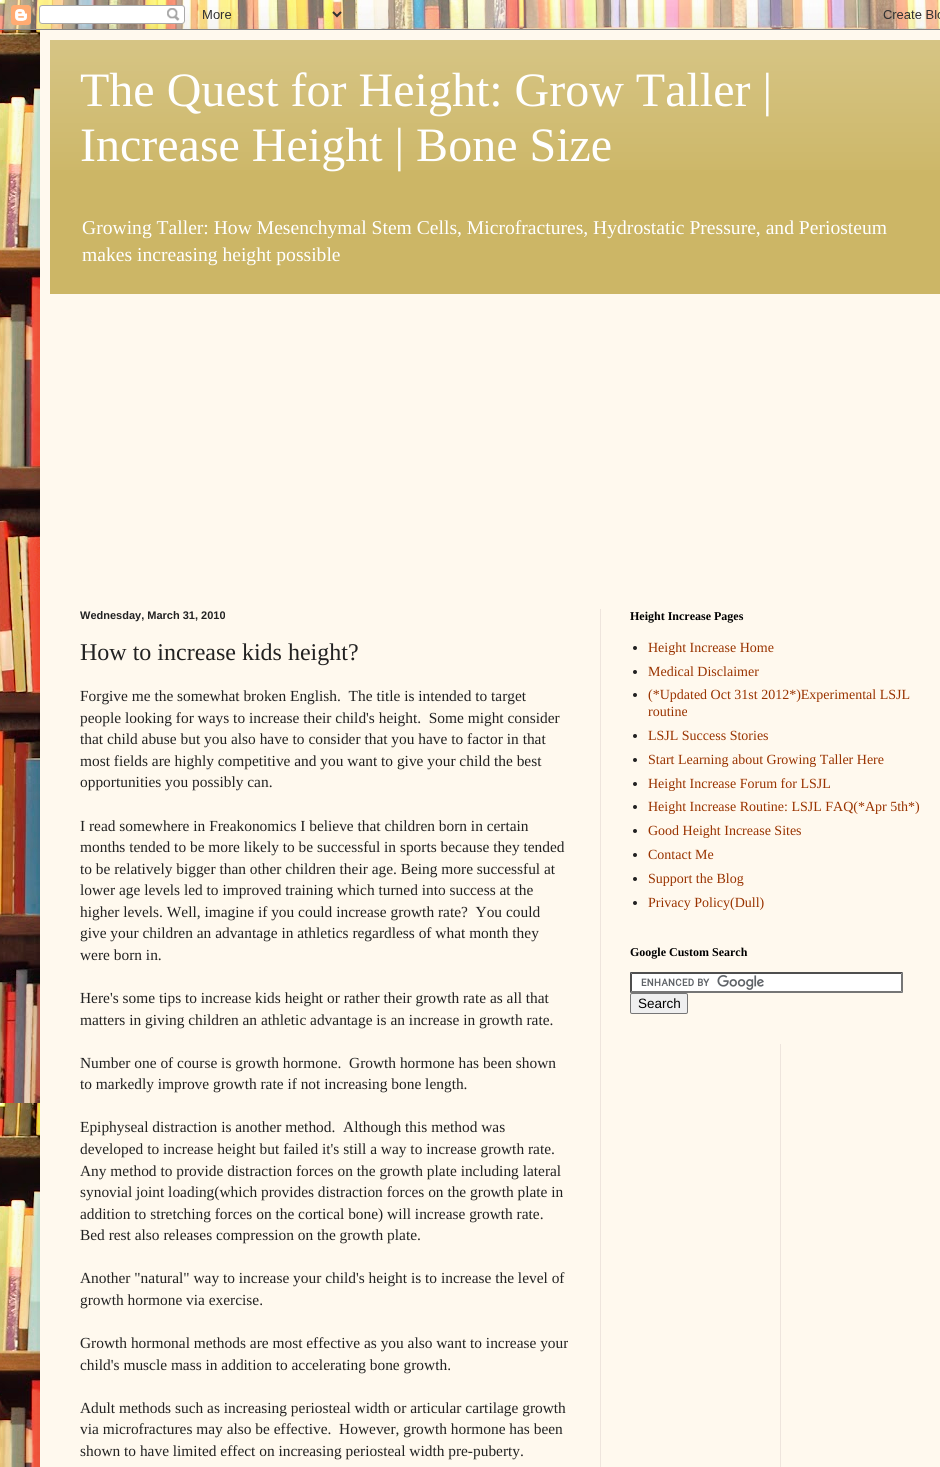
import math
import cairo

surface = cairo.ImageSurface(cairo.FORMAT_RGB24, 940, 1467)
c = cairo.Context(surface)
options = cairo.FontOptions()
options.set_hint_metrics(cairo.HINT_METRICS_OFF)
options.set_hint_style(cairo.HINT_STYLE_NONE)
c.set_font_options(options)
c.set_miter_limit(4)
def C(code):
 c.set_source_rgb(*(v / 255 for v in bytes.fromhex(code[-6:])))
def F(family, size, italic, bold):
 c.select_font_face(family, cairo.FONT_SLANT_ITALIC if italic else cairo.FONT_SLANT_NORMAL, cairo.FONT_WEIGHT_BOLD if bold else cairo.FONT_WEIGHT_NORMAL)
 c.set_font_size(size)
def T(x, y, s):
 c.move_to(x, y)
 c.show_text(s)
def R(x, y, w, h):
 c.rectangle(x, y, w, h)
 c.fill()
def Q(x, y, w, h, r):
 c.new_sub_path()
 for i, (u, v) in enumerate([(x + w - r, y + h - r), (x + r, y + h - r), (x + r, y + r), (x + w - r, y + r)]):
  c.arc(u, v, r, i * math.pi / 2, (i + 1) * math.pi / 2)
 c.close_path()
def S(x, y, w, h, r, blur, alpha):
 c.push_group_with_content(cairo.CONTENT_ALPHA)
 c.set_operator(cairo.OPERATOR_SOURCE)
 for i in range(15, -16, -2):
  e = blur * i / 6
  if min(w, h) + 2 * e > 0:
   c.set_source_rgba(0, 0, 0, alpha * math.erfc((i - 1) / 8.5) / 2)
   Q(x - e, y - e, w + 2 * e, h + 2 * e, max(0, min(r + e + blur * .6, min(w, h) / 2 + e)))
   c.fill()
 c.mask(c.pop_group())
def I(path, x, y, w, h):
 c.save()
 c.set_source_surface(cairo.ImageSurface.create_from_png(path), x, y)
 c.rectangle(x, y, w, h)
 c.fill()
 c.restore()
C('ffffff')
c.paint()
I('1.png',0,0,940,1467)
C('000000')
S(40,30,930,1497,0,20,.15)
I('2.png',0,0,940,30)
C('fff9ee')
R(40,30,900,1437)
C('ccb666')
R(50,40,890,254)
I('3.png',50,40,890,130)
F('Liberation Serif',48,0,0)
C('ffffff')
T(80,106,'The Quest for Height: Grow Taller |')
T(80,161,'Increase Height | Bone Size')
F('Liberation Serif',19.6,0,0)
T(82,234,'Growing Taller: How Mesenchymal Stem Cells, Microfractures, Hydrostatic Pressure, and Periosteum')
T(82,261,'makes increasing height possible')
C('eee5dd')
R(600,609,1,858)
F('Liberation Sans',11,0,1)
C('222222')
T(80,619,'Wednesday, March 31, 2010')
F('Liberation Serif',24,0,0)
T(80,660,'How to increase kids height?')
F('Liberation Serif',15.4,0,0)
T(80,701,'Forgive me the somewhat broken English.  The title is intended to target')
T(80,723,'people looking for ways to increase their child\'s height.  Some might consider')
T(80,744,'that child abuse but you also have to consider that you have to factor in that')
T(80,766,'most fields are highly competitive and you want to give your child the best')
T(80,787,'opportunities you possibly can.')
T(80,831,'I read somewhere in Freakonomics I believe that children born in certain')
T(80,852,'months tended to be more likely to be successful in sports because they tended')
T(80,874,'to be relatively bigger than other children their age. Being more successful at')
T(80,895,'lower age levels led to improved training which turned into success at the')
T(80,917,'higher levels. Well, imagine if you could increase growth rate?  You could')
T(80,938,'give your children an advantage in athletics regardless of what month they')
T(80,960,'were born in.')
T(80,1003,'Here\'s some tips to increase kids height or rather their growth rate as all that')
T(80,1025,'matters in giving children an athletic advantage is an increase in growth rate.')
T(80,1068,'Number one of course is growth hormone.  Growth hormone has been shown')
T(80,1089,'to markedly improve growth rate if not increasing bone length.')
T(80,1132,'Epiphyseal distraction is another method.  Although this method was')
T(80,1154,'developed to increase height but failed it\'s still a way to increase growth rate.')
T(80,1176,'Any method to provide distraction forces on the growth plate including lateral')
T(80,1197,'synovial joint loading(which provides distraction forces on the growth plate in')
T(80,1219,'addition to stretching forces on the cortical bone) will increase growth rate.')
T(80,1240,'Bed rest also releases compression on the growth plate.')
T(80,1283,'Another "natural" way to increase your child\'s height is to increase the level of')
T(80,1305,'growth hormone via exercise.')
T(80,1348,'Growth hormonal methods are most effective as you also want to increase your')
T(80,1370,'child\'s muscle mass in addition to accelerating bone growth.')
T(80,1413,'Adult methods such as increasing periosteal width or articular cartilage growth')
T(80,1434,'via microfractures may also be effective.  However, growth hormone has been')
T(80,1456,'shown to have limited effect on increasing periosteal width pre-puberty.')
F('Liberation Serif',12,0,1)
C('000000')
T(630,620,'Height Increase Pages')
C('222222')
c.new_path()
c.arc(635,648,2,0,2 * math.pi)
c.fill()
F('Liberation Serif',14,0,0)
C('993300')
T(648,652,'Height Increase Home')
C('222222')
c.new_path()
c.arc(635,672,2,0,2 * math.pi)
c.fill()
C('993300')
T(648,676,'Medical Disclaimer')
C('222222')
c.new_path()
c.arc(635,695,2,0,2 * math.pi)
c.fill()
C('993300')
T(648,699,'(*Updated Oct 31st 2012*)Experimental LSJL')
T(648,716,'routine')
C('222222')
c.new_path()
c.arc(635,736,2,0,2 * math.pi)
c.fill()
C('993300')
T(648,740,'LSJL Success Stories')
C('222222')
c.new_path()
c.arc(635,760,2,0,2 * math.pi)
c.fill()
C('993300')
T(648,764,'Start Learning about Growing Taller Here')
C('222222')
c.new_path()
c.arc(635,784,2,0,2 * math.pi)
c.fill()
C('993300')
T(648,788,'Height Increase Forum for LSJL')
C('222222')
c.new_path()
c.arc(635,807,2,0,2 * math.pi)
c.fill()
C('993300')
T(648,811,'Height Increase Routine: LSJL FAQ(*Apr 5th*)')
C('222222')
c.new_path()
c.arc(635,831,2,0,2 * math.pi)
c.fill()
C('993300')
T(648,835,'Good Height Increase Sites')
C('222222')
c.new_path()
c.arc(635,855,2,0,2 * math.pi)
c.fill()
C('993300')
T(648,859,'Contact Me')
C('222222')
c.new_path()
c.arc(635,879,2,0,2 * math.pi)
c.fill()
C('993300')
T(648,883,'Support the Blog')
C('222222')
c.new_path()
c.arc(635,903,2,0,2 * math.pi)
c.fill()
C('993300')
T(648,907,'Privacy Policy(Dull)')
F('Liberation Serif',12,0,1)
C('000000')
T(630,956,'Google Custom Search')
C('ffffff')
R(630,972,273,21)
I('4.png',641,975,123,15)
C('4f4f4f')
c.new_path()
c.move_to(630,972)
c.line_to(903,972)
c.line_to(901,974)
c.line_to(632,974)
c.close_path()
c.fill()
C('767676')
c.new_path()
c.move_to(903,972)
c.line_to(903,993)
c.line_to(901,991)
c.line_to(901,974)
c.close_path()
c.fill()
c.new_path()
c.move_to(903,993)
c.line_to(630,993)
c.line_to(632,991)
c.line_to(901,991)
c.close_path()
c.fill()
C('4f4f4f')
c.new_path()
c.move_to(630,993)
c.line_to(630,972)
c.line_to(632,974)
c.line_to(632,991)
c.close_path()
c.fill()
C('efefef')
Q(630.5,993.5,57,20,1.5)
c.fill_preserve()
C('767676')
c.set_line_width(1)
c.stroke()
F('Liberation Sans',13.5,0,0)
C('000000')
T(638,1008,'Search')
C('eee5dd')
R(780,1044,1,423)
surface.write_to_png('o.png')
